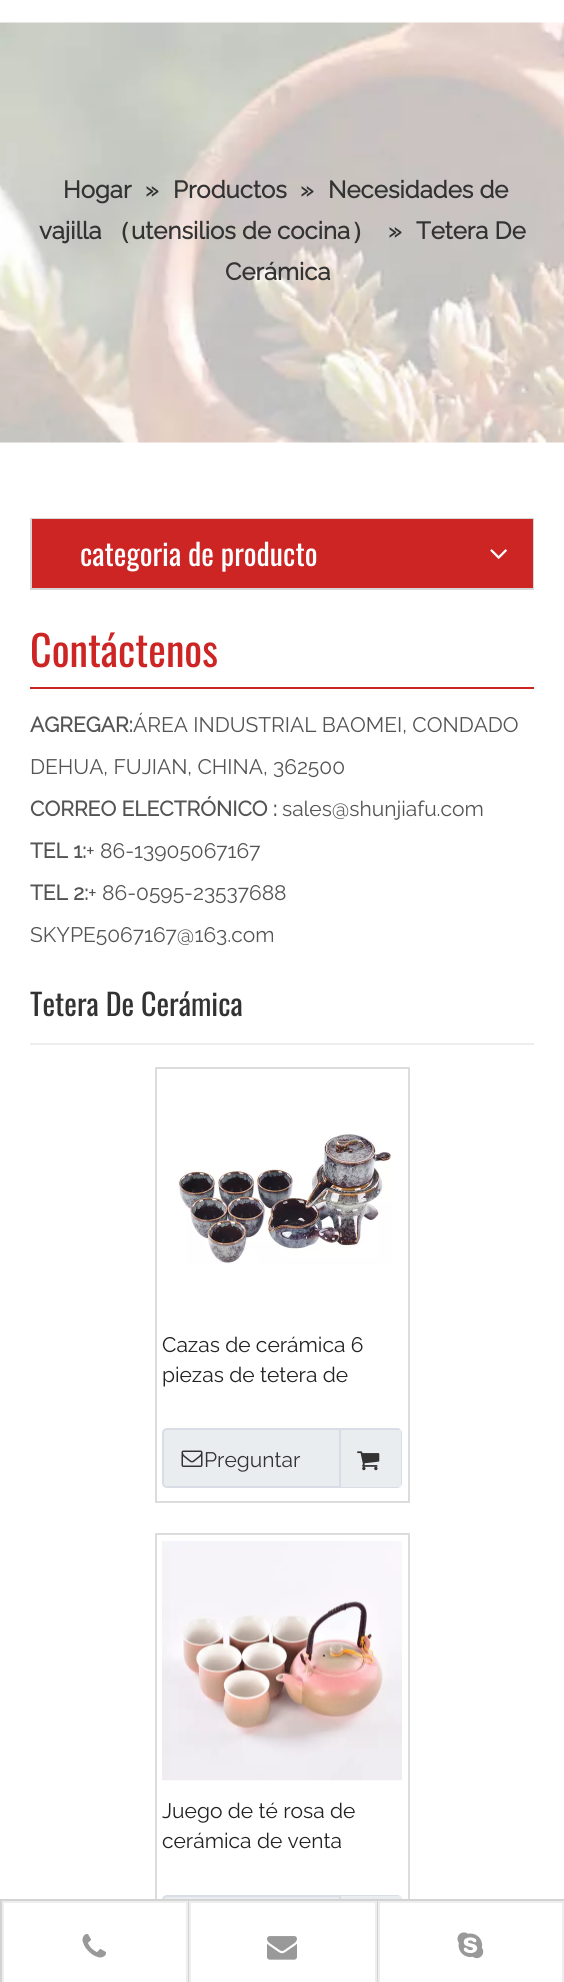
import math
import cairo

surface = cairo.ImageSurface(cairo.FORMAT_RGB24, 564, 1982)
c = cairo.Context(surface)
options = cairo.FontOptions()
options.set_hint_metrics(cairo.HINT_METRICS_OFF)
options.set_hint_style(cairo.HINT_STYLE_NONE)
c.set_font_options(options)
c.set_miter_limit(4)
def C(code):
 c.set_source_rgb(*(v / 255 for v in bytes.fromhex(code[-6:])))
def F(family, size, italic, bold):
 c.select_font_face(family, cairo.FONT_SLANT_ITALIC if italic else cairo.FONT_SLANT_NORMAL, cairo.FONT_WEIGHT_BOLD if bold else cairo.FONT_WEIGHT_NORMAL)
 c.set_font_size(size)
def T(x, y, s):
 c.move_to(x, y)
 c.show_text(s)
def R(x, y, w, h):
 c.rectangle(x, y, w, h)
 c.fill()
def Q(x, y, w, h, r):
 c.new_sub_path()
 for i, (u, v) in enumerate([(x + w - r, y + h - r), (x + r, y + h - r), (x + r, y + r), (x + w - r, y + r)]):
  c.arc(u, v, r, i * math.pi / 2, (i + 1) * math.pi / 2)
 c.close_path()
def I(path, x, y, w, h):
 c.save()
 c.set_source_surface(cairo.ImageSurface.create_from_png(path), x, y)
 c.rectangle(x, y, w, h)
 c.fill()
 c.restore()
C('ffffff')
c.paint()
I('1.png',0,22,564,421)
F('Raleway',24,0,1)
C('333333')
T(63,198,'Hogar')
T(145,198,'»')
T(173,198,'Productos')
T(300,198,'»')
T(328,198,'Necesidades de')
T(39,239,'vajilla')
F('WenQuanYi Zen Hei',24,0,1)
T(107,239,'（')
F('Raleway',24,0,1)
T(131,239,'utensilios de cocina')
F('WenQuanYi Zen Hei',24,0,1)
T(351,239,'）')
F('Raleway',24,0,1)
T(388,239,'»')
T(416,239,'Tetera De')
T(225,280,'Cerámica')
c.rectangle(31,519,502,70)
C('d6d6d6')
c.stroke()
C('cd2424')
R(32,519,501,69)
F('Oswald',30,0,0)
C('ffffff')
T(80,566,'categoria de producto')
I('2.png',490,549,17,10)
C('cd2424')
R(30,687,504,2)
F('Oswald',42,0,0)
T(30,667,'Contáctenos')
F('Raleway',21,0,1)
C('545454')
T(30,732,'AGREGAR:')
F('Raleway Thin',21,0,0)
T(133,732,'ÁREA INDUSTRIAL BAOMEI, CONDADO')
T(30,774,'DEHUA, FUJIAN, CHINA, 362500')
F('Raleway',21,0,1)
T(30,816,'CORREO ELECTRÓNICO :')
F('Raleway Thin',21,0,0)
T(282,816,'sales@shunjiafu.com')
F('Raleway',21,0,1)
T(30,858,'TEL 1:')
F('Raleway Thin',21,0,0)
T(86,858,'+ 86-13905067167')
F('Raleway',21,0,1)
T(30,900,'TEL 2:')
F('Raleway Thin',21,0,0)
T(88,900,'+ 86-0595-23537688')
T(30,942,'SKYPE5067167@163.com')
C('eeeeee')
R(30,1043,504,2)
F('Oswald',30,0,0)
C('333333')
T(30,1016,'Tetera De Cerámica')
c.rectangle(156,1068,253,434)
C('dcdcdc')
c.stroke()
I('3.png',178,1134,214,130)
F('Raleway Thin',21,0,0)
C('222222')
T(162,1352,'Cazas de cerámica 6')
T(162,1382,'piezas de tetera de')
C('eaedef')
Q(163,1429,238,58,4)
c.fill_preserve()
C('d8dde6')
c.stroke()
I('4.png',181,1450,22,17)
C('333333')
T(204,1467,'Preguntar')
C('eaedef')
R(341,1430,60,57)
C('d8dde6')
R(339,1430,2,57)
I('5.png',357,1451,23,20)
c.rectangle(156,1534,253,435)
C('dcdcdc')
c.stroke()
I('6.png',162,1541,240,240)
C('222222')
T(162,1818,'Juego de té rosa de')
T(162,1848,'cerámica de venta')
C('eaedef')
Q(163,1896,238,58,4)
c.fill_preserve()
C('d8dde6')
c.stroke()
C('eaedef')
R(341,1896,60,3)
C('d8dde6')
R(339,1896,2,3)
C('d3d3d3')
R(0,1899,564,2)
R(0,1901,2,81)
C('ffffff')
R(155,1903,31,67)
C('eeeeee')
R(2,1901,186,2)
R(186,1901,2,81)
R(2,1901,2,81)
I('7.png',82,1934,24,24)
C('d3d3d3')
R(188,1901,1,81)
C('ffffff')
R(191,1903,184,67)
C('eeeeee')
R(189,1901,188,2)
R(375,1901,2,81)
R(189,1901,2,81)
I('8.png',267,1936,30,24)
C('d3d3d3')
R(377,1901,1,81)
C('ffffff')
R(380,1903,30,67)
c.rectangle(379,1902,184,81)
C('eeeeee')
c.stroke()
I('9.png',457,1932,27,27)
surface.write_to_png('o.png')
